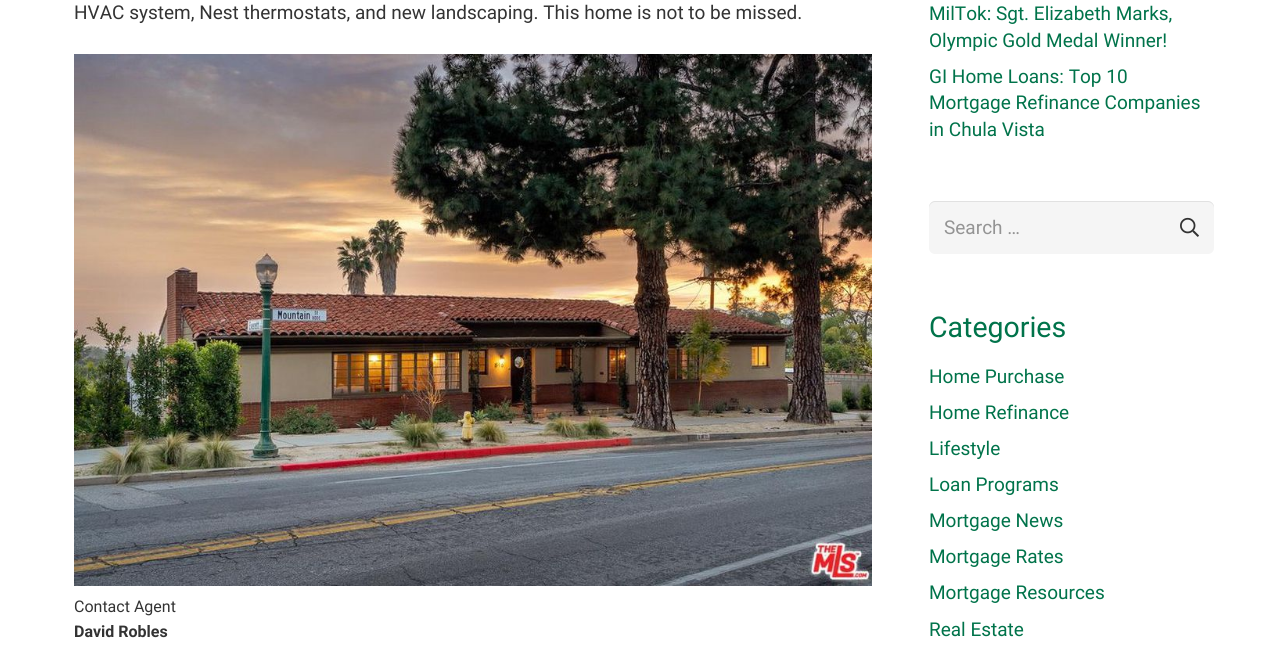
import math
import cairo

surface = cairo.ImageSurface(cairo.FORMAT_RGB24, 1288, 647)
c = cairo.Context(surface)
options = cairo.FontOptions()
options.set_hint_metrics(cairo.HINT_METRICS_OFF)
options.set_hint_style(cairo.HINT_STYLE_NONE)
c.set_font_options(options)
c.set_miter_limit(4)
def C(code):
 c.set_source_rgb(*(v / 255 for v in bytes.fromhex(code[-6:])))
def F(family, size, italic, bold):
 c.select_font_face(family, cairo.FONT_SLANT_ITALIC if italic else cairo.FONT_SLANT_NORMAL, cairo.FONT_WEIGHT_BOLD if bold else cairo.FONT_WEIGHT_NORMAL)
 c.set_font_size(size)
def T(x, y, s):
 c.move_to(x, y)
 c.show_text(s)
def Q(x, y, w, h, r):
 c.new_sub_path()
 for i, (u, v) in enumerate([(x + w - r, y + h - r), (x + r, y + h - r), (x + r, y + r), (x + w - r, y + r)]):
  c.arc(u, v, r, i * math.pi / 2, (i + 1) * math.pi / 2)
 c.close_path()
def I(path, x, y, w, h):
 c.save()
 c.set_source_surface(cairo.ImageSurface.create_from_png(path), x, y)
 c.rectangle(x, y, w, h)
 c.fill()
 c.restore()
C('ffffff')
c.paint()
F('Roboto',19,0,0)
C('333333')
T(74,19,'HVAC system, Nest thermostats, and new landscaping. This home is not to be missed.')
I('1.png',74,54,798,532)
F('Roboto',16,0,0)
T(74,612,'Contact Agent')
F('Roboto',16,0,1)
T(74,637,'David Robles')
F('Roboto',19,0,0)
C('00734a')
T(929,20,'MilTok: Sgt. Elizabeth Marks,')
T(929,47,'Olympic Gold Medal Winner!')
T(929,83,'GI Home Loans: Top 10')
T(929,109,'Mortgage Refinance Companies')
T(929,136,'in Chula Vista')
C('f5f5f5')
Q(929,201,285,53,6)
c.fill()
C('e1e1e1')
c.new_path()
c.move_to(935,202)
c.line_to(1208,202)
c.curve_to(1211,202,1214,205,1214,208)
c.line_to(1214,207)
c.curve_to(1214,204,1211,201,1208,201)
c.line_to(935,201)
c.curve_to(932,201,929,204,929,207)
c.line_to(929,208)
c.curve_to(929,205,932,202,935,202)
c.close_path()
c.fill()
C('949494')
T(944,234,'Search …')
I('2.png',1180,217,19,20)
F('Roboto',28.5,0,0)
C('00734a')
T(929,337,'Categories')
F('Roboto',19,0,0)
T(929,383,'Home Purchase')
T(929,419,'Home Refinance')
T(929,455,'Lifestyle')
T(929,491,'Loan Programs')
T(929,527,'Mortgage News')
T(929,563,'Mortgage Rates')
T(929,599,'Mortgage Resources')
T(929,636,'Real Estate')
surface.write_to_png('o.png')
